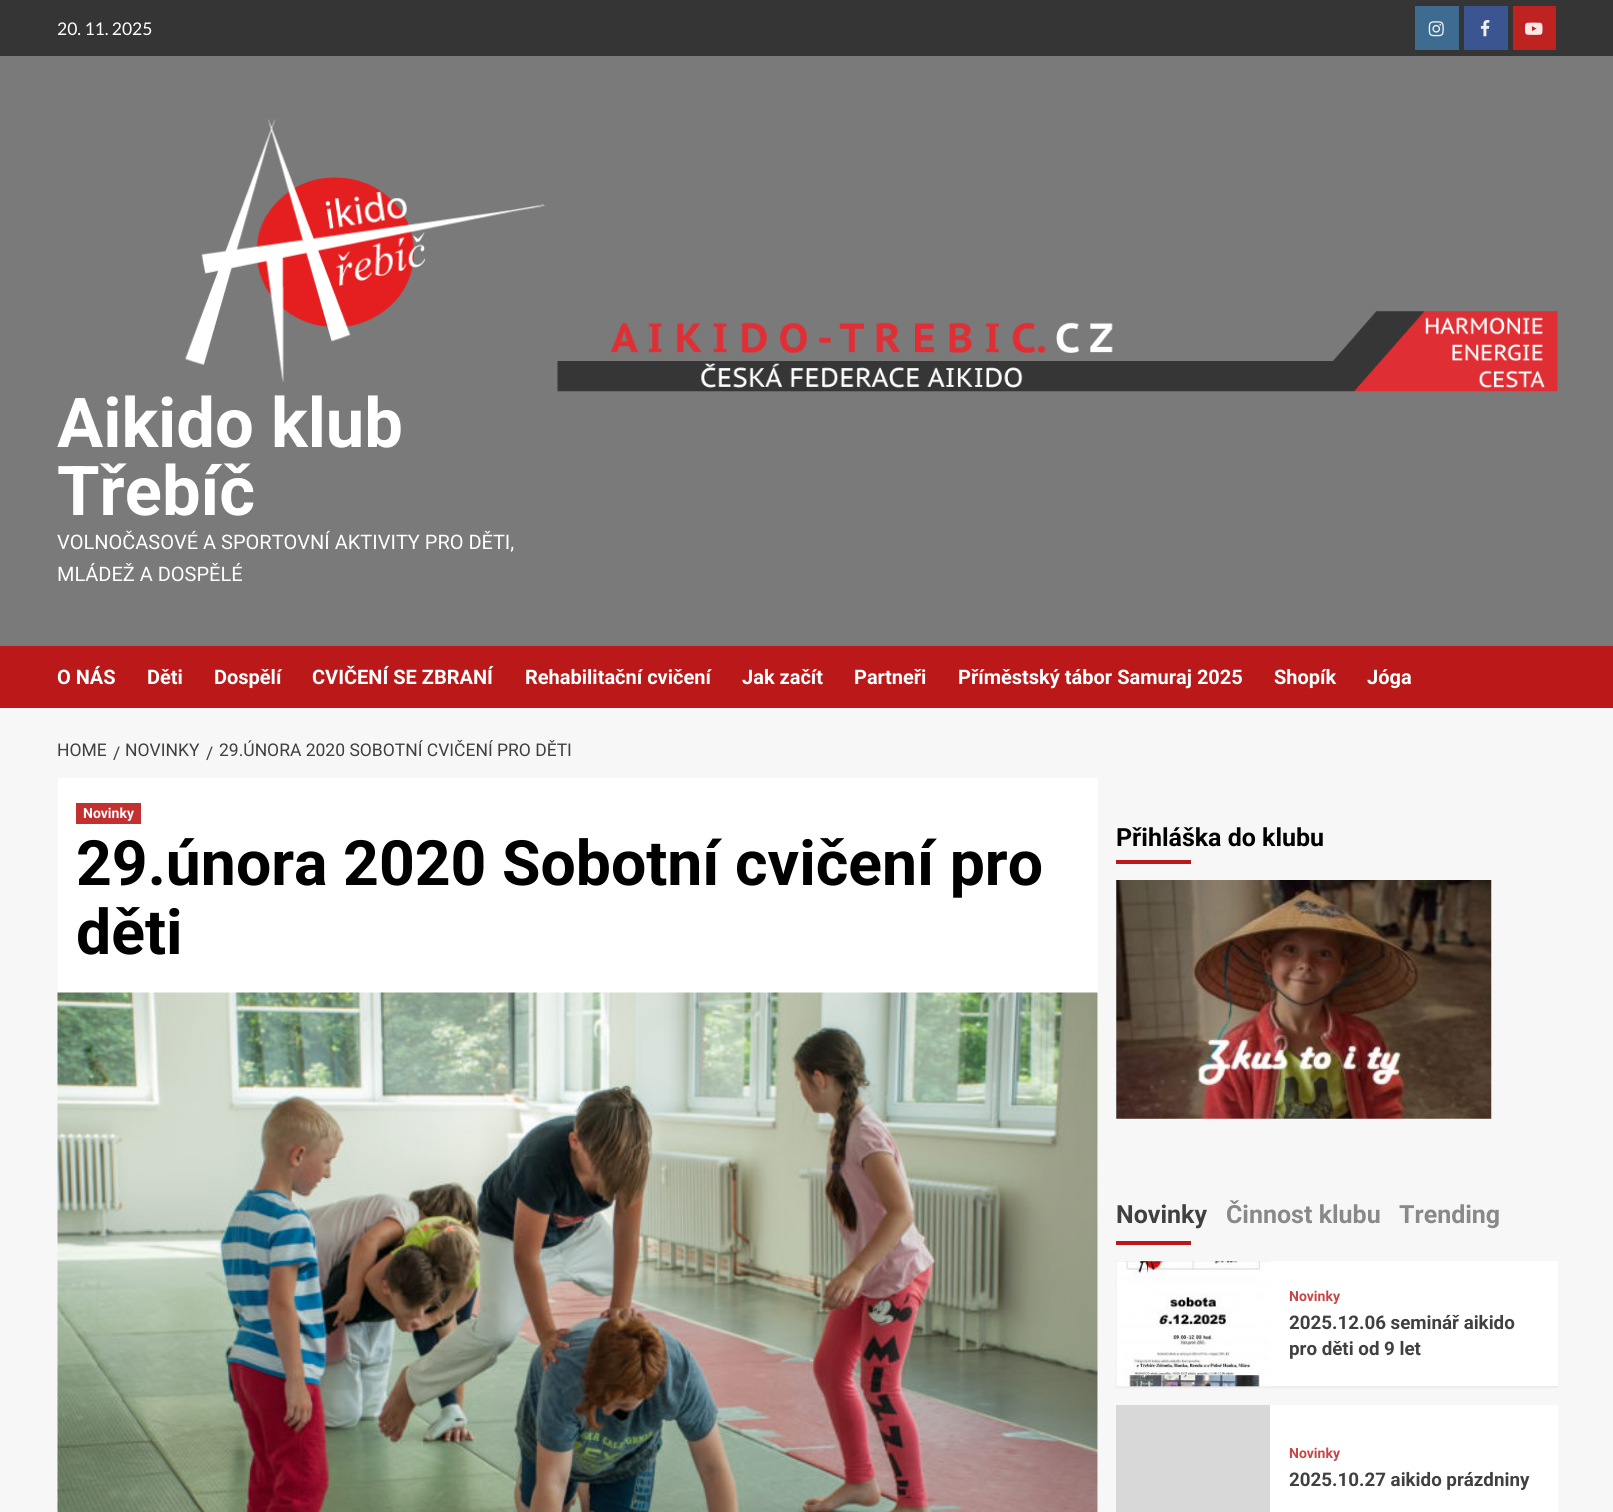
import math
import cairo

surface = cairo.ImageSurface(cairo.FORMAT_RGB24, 1613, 1512)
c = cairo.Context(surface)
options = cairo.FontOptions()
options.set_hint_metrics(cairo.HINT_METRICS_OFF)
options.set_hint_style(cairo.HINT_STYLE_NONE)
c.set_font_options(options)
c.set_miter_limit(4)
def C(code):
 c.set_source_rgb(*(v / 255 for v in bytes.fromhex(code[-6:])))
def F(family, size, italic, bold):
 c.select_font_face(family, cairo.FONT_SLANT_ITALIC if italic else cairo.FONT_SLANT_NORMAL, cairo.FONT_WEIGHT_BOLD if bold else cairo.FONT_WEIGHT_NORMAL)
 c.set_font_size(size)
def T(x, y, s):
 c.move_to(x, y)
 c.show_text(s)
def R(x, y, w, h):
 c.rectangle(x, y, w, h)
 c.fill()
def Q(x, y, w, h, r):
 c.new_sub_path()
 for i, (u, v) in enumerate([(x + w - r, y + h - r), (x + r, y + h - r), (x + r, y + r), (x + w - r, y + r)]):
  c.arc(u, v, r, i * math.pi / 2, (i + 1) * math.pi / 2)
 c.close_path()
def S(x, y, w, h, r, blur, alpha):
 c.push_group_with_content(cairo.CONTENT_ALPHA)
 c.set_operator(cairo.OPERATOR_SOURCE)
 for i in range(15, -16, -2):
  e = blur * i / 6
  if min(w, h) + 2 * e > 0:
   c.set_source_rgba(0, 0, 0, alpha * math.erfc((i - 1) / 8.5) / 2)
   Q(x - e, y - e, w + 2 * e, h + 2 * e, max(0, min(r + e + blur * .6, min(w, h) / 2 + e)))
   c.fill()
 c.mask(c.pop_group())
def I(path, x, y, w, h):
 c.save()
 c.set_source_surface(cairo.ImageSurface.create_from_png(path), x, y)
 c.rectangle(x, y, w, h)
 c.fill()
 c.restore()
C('f7f7f7')
c.paint()
C('353535')
R(0,0,1613,56)
F('Lato',17.5,0,0)
C('ffffff')
T(57,35,'20. 11. 2025')
C('3e6c91')
R(1415,6,44,44)
I('1.png',1428,21,16,16)
C('3a558f')
R(1464,6,44,44)
I('2.png',1480,20,10,17)
C('be2221')
R(1513,6,43,44)
I('3.png',1525,22,18,13)
C('7a7a7a')
R(0,56,1613,590)
I('4.png',557,311,1001,81)
I('5.png',185,119,360,263)
F('Roboto',68.75,0,1)
C('ffffff')
T(57,447,'Aikido klub')
T(57,515,'Třebíč')
F('Roboto',20,0,0)
T(57,549,'VOLNOČASOVÉ A SPORTOVNÍ AKTIVITY PRO DĚTI,')
T(57,581,'MLÁDEŽ A DOSPĚLÉ')
C('bb1919')
R(0,646,1613,62)
F('Roboto',20,0,1)
C('ffffff')
T(57,684,'O NÁS')
T(147,684,'Děti')
T(214,684,'Dospělí')
T(312,684,'CVIČENÍ SE ZBRANÍ')
T(525,684,'Rehabilitační cvičení')
T(742,684,'Jak začít')
T(854,684,'Partneři')
T(958,684,'Příměstský tábor Samuraj 2025')
T(1274,684,'Shopík')
T(1367,684,'Jóga')
F('Roboto',17.5,0,0)
C('404040')
T(57,756,'HOME')
T(113,759,'/')
T(125,756,'NOVINKY')
T(206,759,'/')
T(219,756,'29.ÚNORA 2020 SOBOTNÍ CVIČENÍ PRO DĚTI')
C('ffffff')
R(58,778,1040,734)
C('c23030')
R(76,803,65,21)
F('Roboto',14,0,1)
C('ffffff')
T(83,818,'Novinky')
F('Roboto',62.5,0,1)
C('000000')
T(76,885,'29.února 2020 Sobotní cvičení pro')
T(76,954,'děti')
I('6.png',57,992,1041,520)
F('Roboto',25,0,1)
T(1116,846,'Přihláška do klubu')
C('bb1919')
R(1116,860,75,4)
I('7.png',1116,880,376,239)
C('404040')
T(1116,1223,'Novinky')
C('bb1919')
R(1116,1241,75,4)
C('898989')
T(1226,1223,'Činnost klubu')
T(1399,1223,'Trending')
C('000000')
S(1116,1263,442,125,0,1,.05)
C('ffffff')
R(1270,1261,288,125)
C('d8d8d8')
R(1116,1261,154,125)
I('8.png',1116,1261,154,126)
F('Roboto',14,0,1)
C('c84545')
T(1289,1301,'Novinky')
F('Roboto',18.75,0,1)
C('404040')
T(1289,1329,'2025.12.06 seminář aikido')
T(1289,1355,'pro děti od 9 let')
C('ffffff')
R(1270,1405,288,107)
C('d8d8d8')
R(1116,1405,154,107)
F('Roboto',14,0,1)
C('c84545')
T(1289,1458,'Novinky')
F('Roboto',18.75,0,1)
C('404040')
T(1289,1486,'2025.10.27 aikido prázdniny')
surface.write_to_png('o.png')
